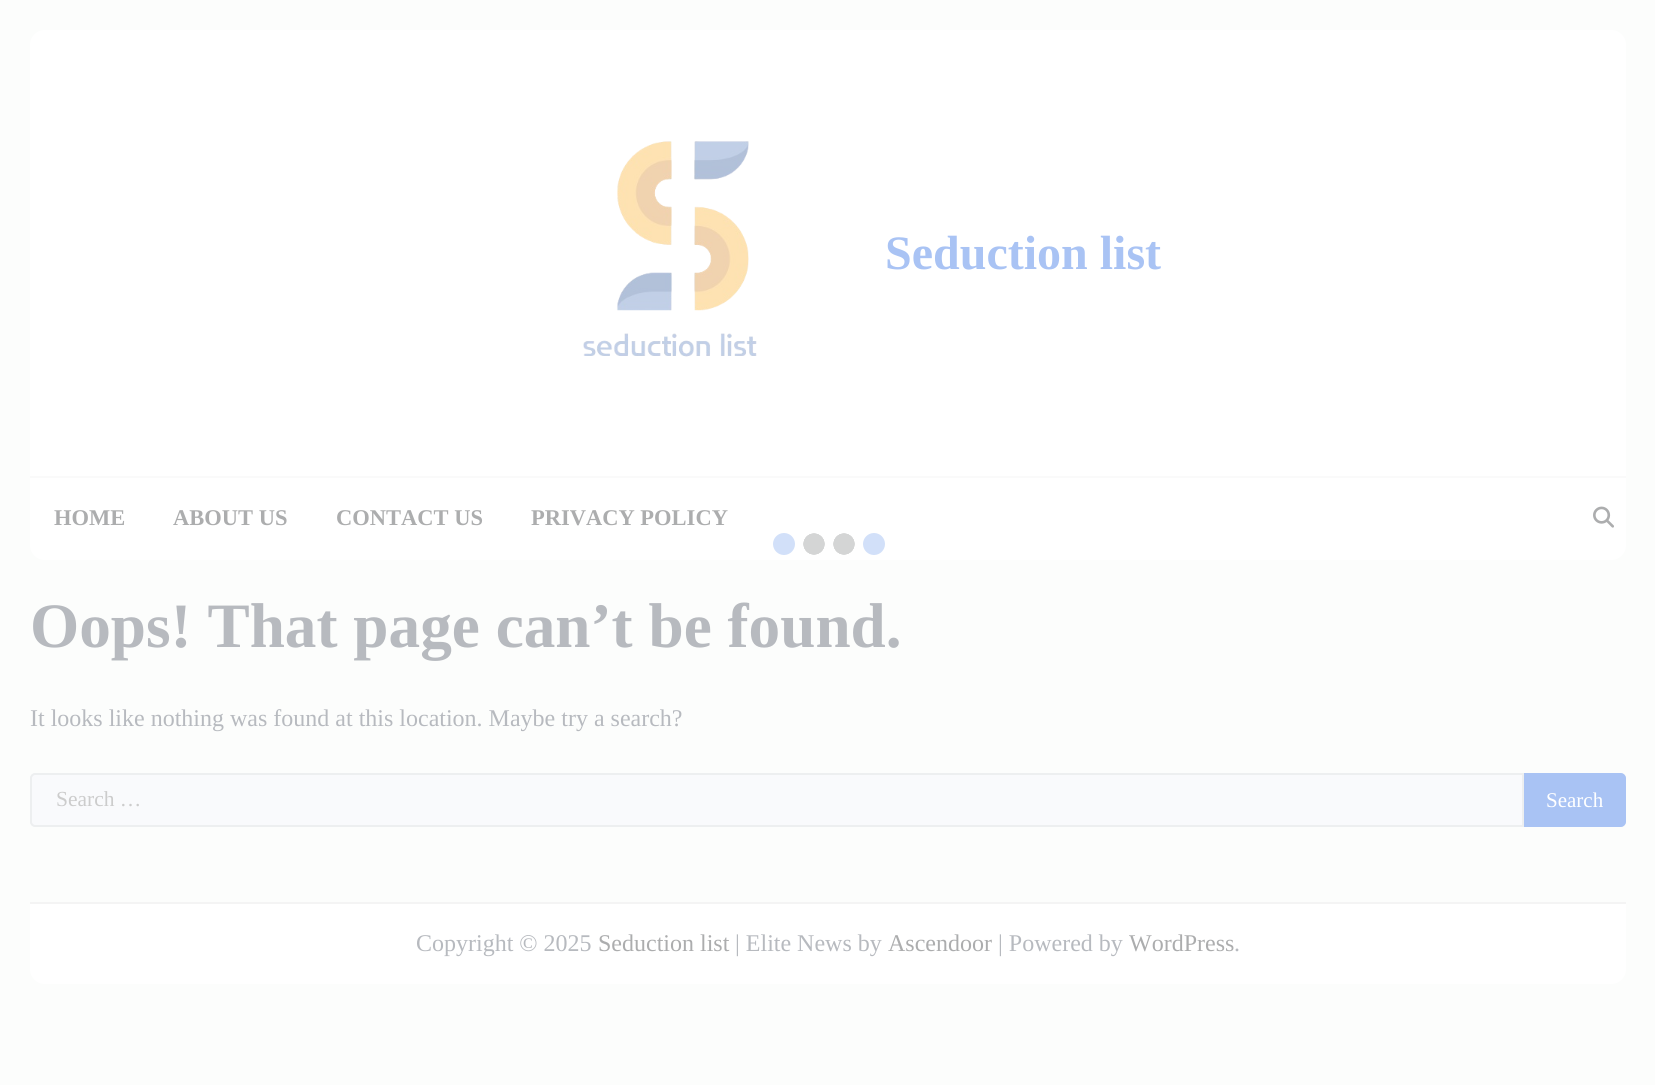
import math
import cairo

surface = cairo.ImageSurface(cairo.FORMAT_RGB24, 1655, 1085)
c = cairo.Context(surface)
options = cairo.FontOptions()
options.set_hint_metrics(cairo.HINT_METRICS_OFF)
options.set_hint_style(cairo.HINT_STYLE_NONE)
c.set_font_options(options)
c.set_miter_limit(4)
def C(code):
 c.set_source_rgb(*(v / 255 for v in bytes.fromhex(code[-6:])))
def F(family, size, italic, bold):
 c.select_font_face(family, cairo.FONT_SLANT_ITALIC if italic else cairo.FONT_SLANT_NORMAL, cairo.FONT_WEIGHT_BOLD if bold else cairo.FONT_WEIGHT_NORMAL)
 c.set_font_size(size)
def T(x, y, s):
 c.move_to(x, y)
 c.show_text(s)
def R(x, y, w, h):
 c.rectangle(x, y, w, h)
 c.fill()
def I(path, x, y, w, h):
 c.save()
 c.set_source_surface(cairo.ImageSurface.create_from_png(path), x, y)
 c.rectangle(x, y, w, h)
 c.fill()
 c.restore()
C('fcfdfc')
c.paint()
C('ffffff')
c.new_path()
c.move_to(45,30)
c.line_to(1611,30)
c.curve_to(1619.5,30,1626,36.5,1626,45)
c.line_to(1626,476)
c.line_to(30,476)
c.line_to(30,45)
c.curve_to(30,36.5,36.5,30,45,30)
c.close_path()
c.fill()
I('1.png',583,141,174,216)
F('Liberation Serif',48,0,1)
C('a9c3f4')
T(885,269,'Seduction list')
C('ffffff')
c.new_path()
c.move_to(30,476)
c.line_to(1626,476)
c.line_to(1626,545)
c.curve_to(1626,553.5,1619.5,560,1611,560)
c.line_to(45,560)
c.curve_to(36.5,560,30,553.5,30,545)
c.close_path()
c.fill()
C('fafafa')
R(30,476,1596,2)
F('Liberation Serif',22.5,0,1)
C('acadae')
T(54,525,'HOME')
T(173,525,'ABOUT US')
T(336,525,'CONTACT US')
T(531,525,'PRIVACY POLICY')
I('2.png',1593,506,21,22)
gradient = cairo.RadialGradient(844,544,0,844,544,11)
gradient.add_color_stop_rgba(.95,0.831,0.835,0.835,1)
gradient.add_color_stop_rgba(1,1,1,1,1)
c.set_source(gradient)
R(833,533,22,22)
gradient = cairo.RadialGradient(814,544,0,814,544,11)
gradient.add_color_stop_rgba(.95,0.831,0.835,0.835,1)
gradient.add_color_stop_rgba(1,1,1,1,1)
c.set_source(gradient)
R(803,533,22,22)
C('d2e0f9')
c.arc(784,544,11,0,2 * math.pi)
c.fill()
c.arc(874,544,11,0,2 * math.pi)
c.fill()
F('Liberation Serif',63.25,0,1)
C('b7babf')
T(30,647,'Oops! That page can’t be found.')
F('Liberation Serif',24,0,0)
T(30,726,'It looks like nothing was found at this location. Maybe try a search?')
C('f9fafc')
c.new_path()
c.move_to(35,773)
c.line_to(1524,773)
c.line_to(1524,827)
c.line_to(35,827)
c.curve_to(32,827,30,825,30,822)
c.line_to(30,778)
c.curve_to(30,775,32,773,35,773)
c.close_path()
c.fill()
c.new_path()
c.move_to(35,774)
c.line_to(1523,774)
c.line_to(1523,826)
c.line_to(35,826)
c.curve_to(33,826,31,824,31,822)
c.line_to(31,778)
c.curve_to(31,776,33,774,35,774)
c.close_path()
c.set_source_rgba(0.675,0.678,0.682,0.15)
c.stroke()
F('Liberation Serif',21.5,0,0)
C('cccccc')
T(56,806,'Search …')
C('a9c3f4')
c.new_path()
c.move_to(1525,774)
c.line_to(1621,774)
c.curve_to(1623,774,1625,776,1625,778)
c.line_to(1625,822)
c.curve_to(1625,824,1623,826,1621,826)
c.line_to(1525,826)
c.close_path()
c.fill_preserve()
c.stroke()
F('Liberation Serif',21,0,0)
C('ffffff')
T(1546,807,'Search')
c.new_path()
c.move_to(30,902)
c.line_to(1626,902)
c.line_to(1626,969)
c.curve_to(1626,977.5,1619.5,984,1611,984)
c.line_to(45,984)
c.curve_to(36.5,984,30,977.5,30,969)
c.close_path()
c.fill()
C('f4f4f4')
R(30,902,1596,2)
F('Liberation Serif',24,0,0)
C('b7babf')
T(416,951,'Copyright © 2025')
C('acadae')
T(598,951,'Seduction list')
C('b7babf')
T(735,951,'| Elite News by')
C('acadae')
T(888,951,'Ascendoor')
C('b7babf')
T(998,951,'| Powered by')
C('acadae')
T(1129,951,'WordPress')
C('b7babf')
T(1234,951,'.')
surface.write_to_png('o.png')
